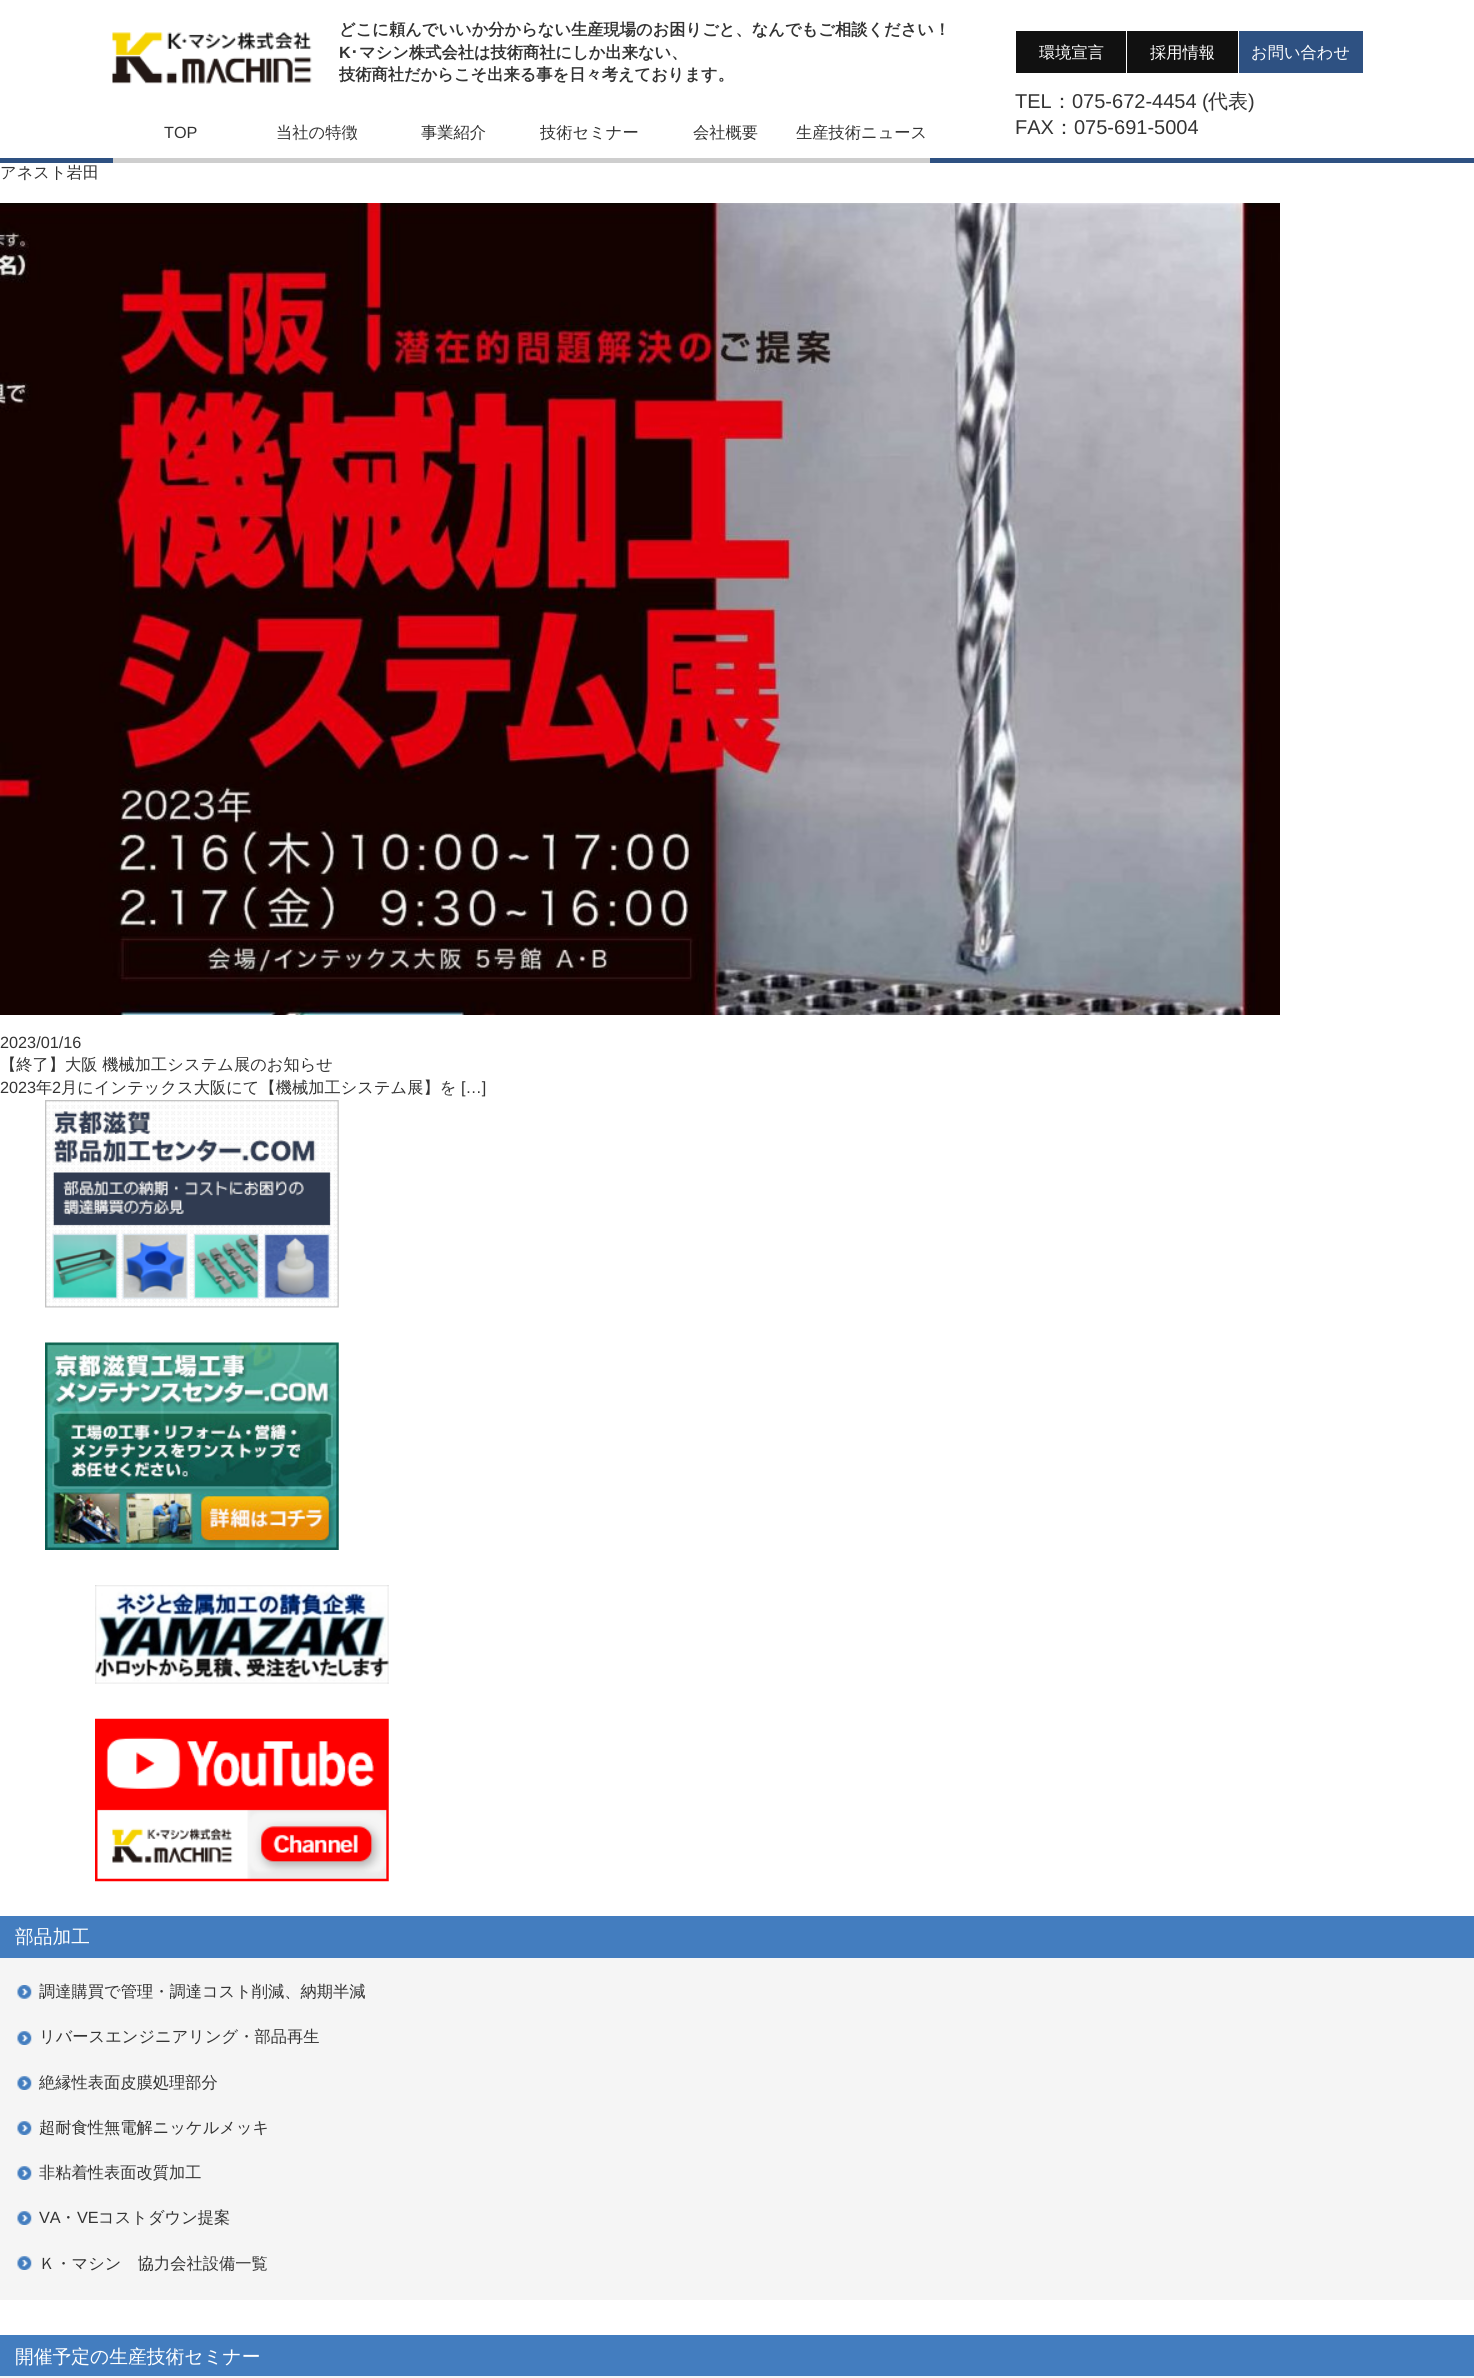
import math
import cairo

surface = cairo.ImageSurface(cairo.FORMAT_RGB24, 1474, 2378)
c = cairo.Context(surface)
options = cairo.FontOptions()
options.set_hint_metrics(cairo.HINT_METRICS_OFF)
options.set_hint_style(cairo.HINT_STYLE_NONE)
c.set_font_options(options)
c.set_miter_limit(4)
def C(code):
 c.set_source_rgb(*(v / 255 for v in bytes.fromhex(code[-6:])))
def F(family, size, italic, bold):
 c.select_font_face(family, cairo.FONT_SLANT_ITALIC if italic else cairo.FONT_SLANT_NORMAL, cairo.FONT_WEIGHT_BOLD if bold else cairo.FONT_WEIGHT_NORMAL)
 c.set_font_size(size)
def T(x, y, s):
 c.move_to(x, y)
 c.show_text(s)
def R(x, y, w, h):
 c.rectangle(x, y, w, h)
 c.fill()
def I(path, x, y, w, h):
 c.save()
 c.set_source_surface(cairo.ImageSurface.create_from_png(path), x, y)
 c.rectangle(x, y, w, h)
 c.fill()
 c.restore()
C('ffffff')
c.paint()
C('2e5182')
R(0,158,1474,5)
I('1.png',112,32,200,52)
F('WenQuanYi Zen Hei',16.25,0,1)
C('333333')
T(339,35,'どこに頼んでいいか分からない生産現場のお困りごと、なんでもご相談ください！')
F('Liberation Sans',16.25,0,1)
T(339,58,'K')
F('IPAPGothic',16.25,0,1)
T(350,58,'･')
F('WenQuanYi Zen Hei',16.25,0,1)
T(359,58,'マシン株式会社は技術商社にしか出来ない、')
T(339,80,'技術商社だからこそ出来る事を日々考えております。')
C('111111')
R(1016,31,110,42)
F('WenQuanYi Zen Hei Medium',16.25,0,0)
C('ffffff')
T(1039,58,'環境宣言')
C('111111')
R(1127,31,111,42)
C('ffffff')
T(1150,58,'採用情報')
C('2e5182')
R(1239,31,124,42)
C('ffffff')
T(1251,58,'お問い合わせ')
C('cecece')
R(113,158,817,5)
F('Liberation Sans',16.25,0,0)
C('333333')
T(164,138,'TOP')
F('WenQuanYi Zen Hei Medium',16.25,0,0)
T(276,138,'当社の特徴')
T(421,138,'事業紹介')
T(540,138,'技術セミナー')
T(693,138,'会社概要')
T(796,138,'生産技術ニュース')
F('Liberation Sans',20,0,0)
T(1015,108,'TEL')
F('WenQuanYi Zen Hei Medium',20,0,0)
T(1052,108,'：')
F('Liberation Sans',20,0,0)
T(1072,108,'075-672-4454 (')
F('WenQuanYi Zen Hei Medium',20,0,0)
T(1208,108,'代表')
F('Liberation Sans',20,0,0)
T(1248,108,')')
T(1015,134,'FAX')
F('WenQuanYi Zen Hei Medium',20,0,0)
T(1054,134,'：')
F('Liberation Sans',20,0,0)
T(1074,134,'075-691-5004')
F('WenQuanYi Zen Hei Medium',16.25,0,0)
T(0,178,'アネスト岩田')
I('2.png',0,203,1280,812)
F('Liberation Sans',16.25,0,0)
T(0,1048,'2023/01/16')
F('WenQuanYi Zen Hei Medium',16.25,0,0)
T(0,1070,'【終了】大阪 機械加工システム展のお知らせ')
F('Liberation Sans',16.25,0,0)
T(0,1093,'2023')
F('WenQuanYi Zen Hei Medium',16.25,0,0)
T(36,1093,'年')
F('Liberation Sans',16.25,0,0)
T(52,1093,'2')
F('WenQuanYi Zen Hei Medium',16.25,0,0)
T(61,1093,'月にインテックス大阪にて【機械加工システム展】を')
F('Liberation Sans',16.25,0,0)
T(461,1093,'[…]')
I('3.png',45,1100,294,208)
I('4.png',45,1342,294,208)
I('5.png',95,1585,294,99)
I('6.png',95,1718,294,164)
C('f5f5f5')
R(0,1958,1474,342)
C('437dbf')
R(0,1916,1474,42)
F('WenQuanYi Zen Hei Medium',18.75,0,0)
C('ffffff')
T(15,1943,'部品加工')
I('7.png',17,1985,15,14)
F('WenQuanYi Zen Hei Medium',16.25,0,0)
C('333333')
T(39,1997,'調達購買で管理・調達コスト削減、納期半減')
I('8.png',17,2031,15,14)
T(39,2042,'リバースエンジニアリング・部品再生')
I('8.png',17,2076,15,14)
T(39,2088,'絶縁性表面皮膜処理部分')
I('8.png',17,2121,15,14)
T(39,2133,'超耐食性無電解ニッケルメッキ')
I('8.png',17,2166,15,14)
T(39,2178,'非粘着性表面改質加工')
I('8.png',17,2211,15,14)
F('Liberation Sans',16.25,0,0)
T(39,2223,'VA')
F('WenQuanYi Zen Hei Medium',16.25,0,0)
T(60,2223,'・')
F('Liberation Sans',16.25,0,0)
T(77,2223,'VE')
F('WenQuanYi Zen Hei Medium',16.25,0,0)
T(98,2223,'コストダウン提案')
I('8.png',17,2256,15,14)
T(39,2269,'Ｋ・マシン　協力会社設備一覧')
C('f5f5f5')
R(0,2376,1474,2)
C('437dbf')
R(0,2335,1474,41)
F('WenQuanYi Zen Hei Medium',18.75,0,0)
C('ffffff')
T(15,2363,'開催予定の生産技術セミナー')
surface.write_to_png('o.png')
